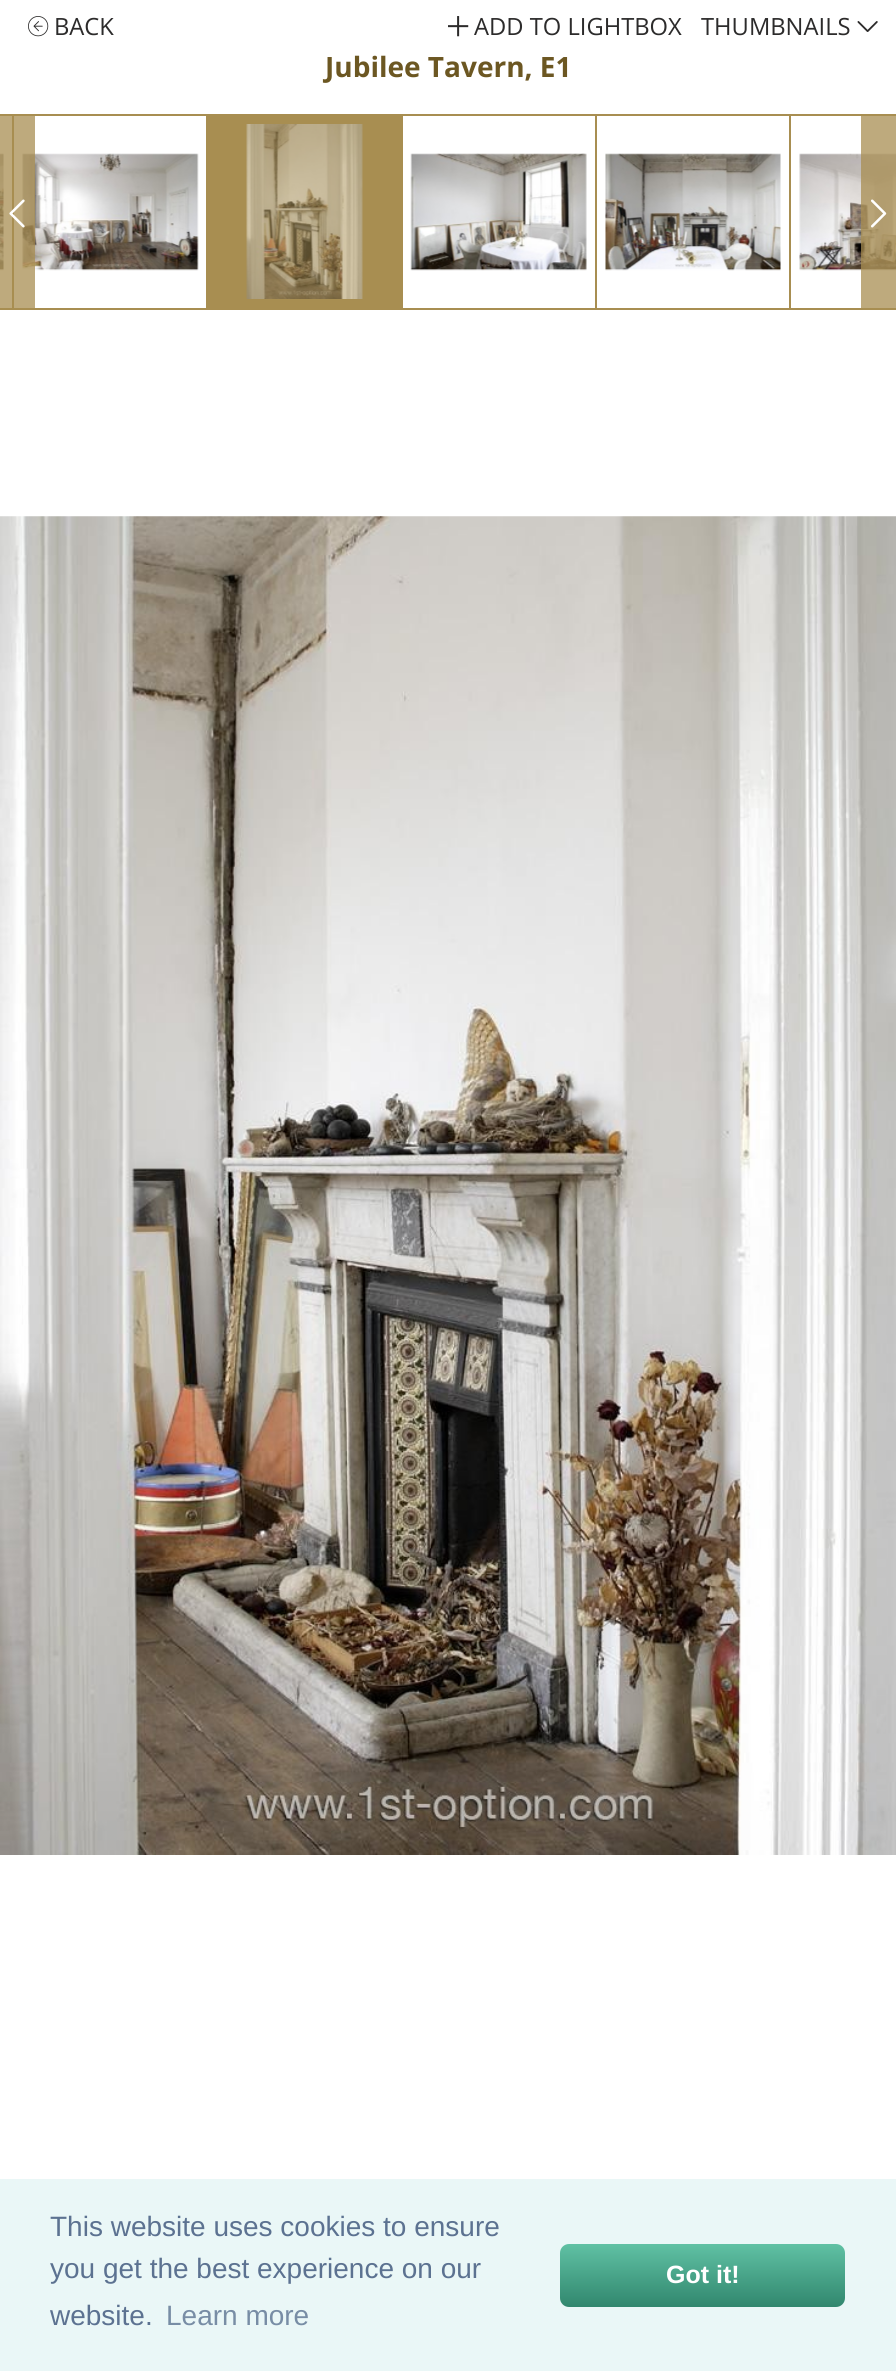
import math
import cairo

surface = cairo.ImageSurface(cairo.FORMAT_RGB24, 896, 2371)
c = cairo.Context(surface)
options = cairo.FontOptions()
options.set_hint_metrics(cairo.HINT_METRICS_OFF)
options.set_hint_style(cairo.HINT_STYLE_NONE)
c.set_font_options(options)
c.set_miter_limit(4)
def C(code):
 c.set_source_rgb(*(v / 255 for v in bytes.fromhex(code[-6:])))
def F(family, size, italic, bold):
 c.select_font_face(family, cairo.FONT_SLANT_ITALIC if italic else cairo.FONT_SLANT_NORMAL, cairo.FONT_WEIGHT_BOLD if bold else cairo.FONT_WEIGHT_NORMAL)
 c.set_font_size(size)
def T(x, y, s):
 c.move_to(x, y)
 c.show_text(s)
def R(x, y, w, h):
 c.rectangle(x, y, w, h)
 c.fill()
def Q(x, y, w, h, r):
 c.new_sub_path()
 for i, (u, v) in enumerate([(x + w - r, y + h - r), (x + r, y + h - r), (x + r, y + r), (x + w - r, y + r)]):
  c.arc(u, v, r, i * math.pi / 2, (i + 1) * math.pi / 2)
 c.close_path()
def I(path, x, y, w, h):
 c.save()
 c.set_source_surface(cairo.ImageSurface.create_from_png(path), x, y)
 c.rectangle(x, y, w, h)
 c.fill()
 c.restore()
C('ffffff')
c.paint()
I('1.png',28,16,21,21)
F('Open Sans',23.75,0,0)
C('2c2b2b')
T(54,35,'BACK')
I('2.png',448,16,21,21)
T(474,35,'ADD TO LIGHTBOX')
T(701,35,'THUMBNAILS')
I('3.png',857,21,21,11)
F('Open Sans',28,0,1)
C('6c5722')
T(325,77,'Jubilee Tavern, E1')
c.rectangle(-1,115,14,194)
C('a88e51')
c.stroke()
I('4.png',0,153,4,118)
c.rectangle(13,115,194,194)
c.stroke()
I('5.png',22,153,177,118)
R(208,114,193,196)
I('6.png',246,124,117,175)
c.rectangle(402,115,194,194)
c.stroke()
I('7.png',410,153,177,118)
c.rectangle(596,115,194,194)
c.stroke()
I('8.png',605,153,176,118)
c.rectangle(790,115,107,194)
c.stroke()
I('9.png',799,153,97,118)
c.set_source_rgba(0.659,0.557,0.318,0.75)
R(0,116,35,192)
I('10.png',9,199,16,29)
R(861,116,35,192)
I('11.png',871,199,16,29)
I('12.png',0,516,896,1339)
C('eaf7f7')
R(0,2179,896,192)
F('Liberation Sans',28,0,0)
C('5c7291')
T(50,2236,'This website uses cookies to ensure')
T(50,2278,'you get the best experience on our')
T(50,2325,'website.')
C('788da5')
T(166,2325,'Learn more')
gradient = cairo.LinearGradient(703,2307,703,2244)
gradient.add_color_stop_rgba(0,0.192,0.529,0.431,1)
gradient.add_color_stop_rgba(1,0.376,0.757,0.643,1)
c.set_source(gradient)
Q(560,2244,285,63,9)
c.fill()
F('Liberation Sans',25,0,1)
C('ffffff')
T(666,2283,'Got it!')
surface.write_to_png('o.png')
